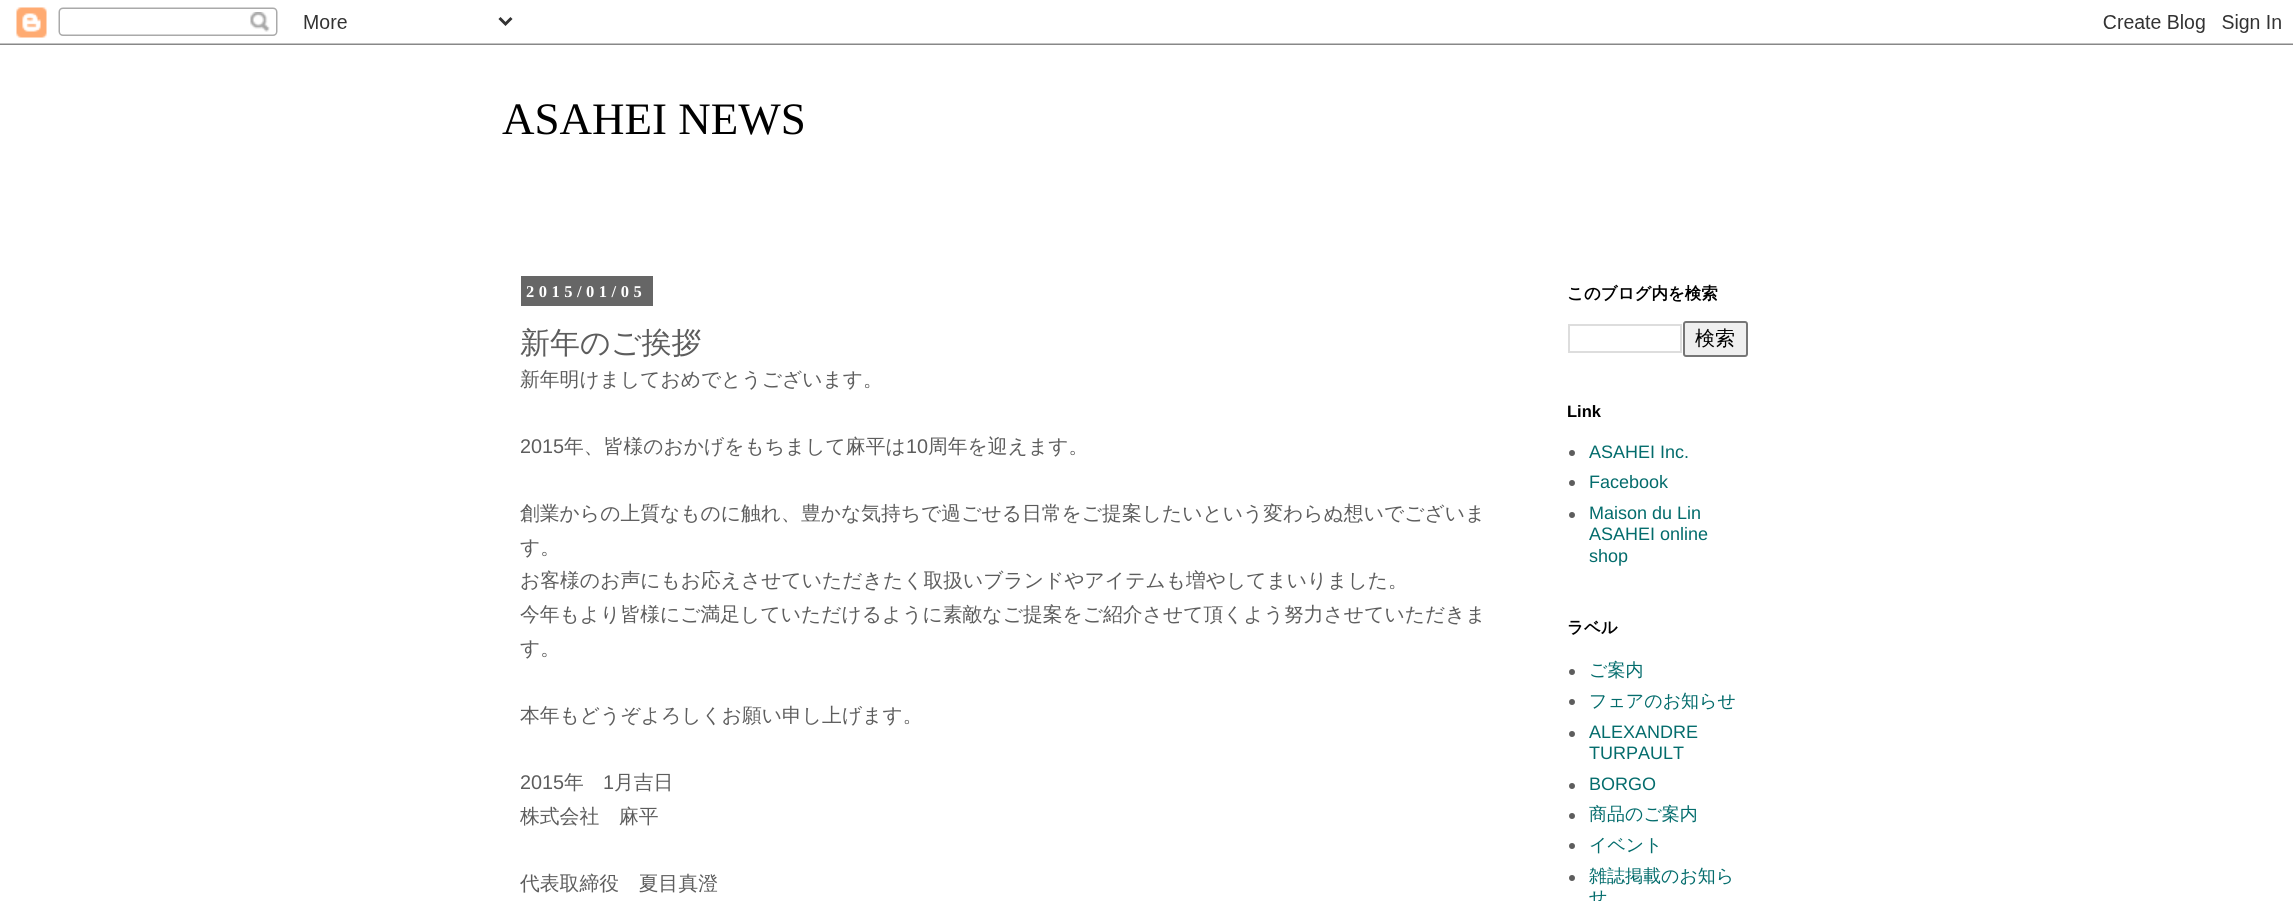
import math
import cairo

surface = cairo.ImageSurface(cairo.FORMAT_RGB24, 2293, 901)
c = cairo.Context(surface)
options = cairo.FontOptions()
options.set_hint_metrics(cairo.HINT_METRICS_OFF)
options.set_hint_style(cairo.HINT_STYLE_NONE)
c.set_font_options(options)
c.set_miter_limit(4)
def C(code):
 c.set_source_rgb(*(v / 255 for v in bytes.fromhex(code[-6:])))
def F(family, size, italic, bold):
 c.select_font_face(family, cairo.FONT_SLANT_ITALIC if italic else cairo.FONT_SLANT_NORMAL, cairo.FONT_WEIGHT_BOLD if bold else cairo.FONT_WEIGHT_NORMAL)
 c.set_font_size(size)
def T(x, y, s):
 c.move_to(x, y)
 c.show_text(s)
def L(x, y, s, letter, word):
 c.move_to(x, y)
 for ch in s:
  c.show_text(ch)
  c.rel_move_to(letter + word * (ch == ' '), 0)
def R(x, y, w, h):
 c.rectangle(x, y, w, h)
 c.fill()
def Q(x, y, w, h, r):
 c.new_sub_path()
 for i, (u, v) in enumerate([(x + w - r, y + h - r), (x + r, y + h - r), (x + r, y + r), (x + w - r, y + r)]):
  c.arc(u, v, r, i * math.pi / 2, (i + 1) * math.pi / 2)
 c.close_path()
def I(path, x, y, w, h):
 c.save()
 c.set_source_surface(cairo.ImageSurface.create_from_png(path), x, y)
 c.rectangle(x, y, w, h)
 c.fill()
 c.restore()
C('ffffff')
c.paint()
I('1.png',0,7,2293,38)
F('Liberation Serif',45,0,0)
C('000000')
T(502,134,'ASAHEI NEWS')
C('666666')
R(521,276,132,30)
F('Liberation Serif',16.5,0,1)
C('ffffff')
L(526,297,'2015/01/05',4.5,0)
F('WenQuanYi Zen Hei Medium',30,0,0)
C('5d5d5d')
T(520,353,'新年のご挨拶')
F('WenQuanYi Zen Hei Medium',19.8,0,0)
T(520,386,'新年明けましておめでとうございます。')
F('Liberation Sans',19.8,0,0)
T(520,453,'2015')
F('WenQuanYi Zen Hei Medium',19.8,0,0)
T(564,453,'年、皆様のおかげをもちまして麻平は')
F('Liberation Sans',19.8,0,0)
T(906,453,'10')
F('WenQuanYi Zen Hei Medium',19.8,0,0)
T(928,453,'周年を迎えます。')
T(520,520,'創業からの上質なものに触れ、豊かな気持ちで過ごせる日常をご提案したいという変わらぬ想いでございま')
T(520,554,'す。')
T(520,587,'お客様のお声にもお応えさせていただきたく取扱いブランドやアイテムも増やしてまいりました。')
T(520,621,'今年もより皆様にご満足していただけるように素敵なご提案をご紹介させて頂くよう努力させていただきま')
T(520,655,'す。')
T(520,722,'本年もどうぞよろしくお願い申し上げます。')
F('Liberation Sans',19.8,0,0)
T(520,789,'2015')
F('WenQuanYi Zen Hei Medium',19.8,0,0)
T(564,789,'年')
F('Liberation Sans',19.8,0,0)
T(603,789,'1')
F('WenQuanYi Zen Hei Medium',19.8,0,0)
T(614,789,'月吉日')
T(520,823,'株式会社　麻平')
T(520,890,'代表取締役　夏目真澄')
F('WenQuanYi Zen Hei',16.5,0,1)
C('000000')
T(1567,299,'このブログ内を検索')
c.rectangle(1569,325,112,27)
C('dddddd')
c.stroke()
C('efefef')
Q(1684,322,63,34,2)
c.fill_preserve()
C('767676')
c.stroke()
F('WenQuanYi Zen Hei Medium',20,0,0)
C('000000')
T(1695,345,'検索')
F('Liberation Sans',16.5,0,1)
T(1567,417,'Link')
C('5d5d5d')
c.new_path()
c.arc(1572,453,3,0,2 * math.pi)
c.fill()
F('Liberation Sans',18,0,0)
C('036c6c')
T(1589,458,'ASAHEI Inc.')
C('5d5d5d')
c.new_path()
c.arc(1572,483,3,0,2 * math.pi)
c.fill()
C('036c6c')
T(1589,488,'Facebook')
C('5d5d5d')
c.new_path()
c.arc(1572,515,3,0,2 * math.pi)
c.fill()
C('036c6c')
T(1589,519,'Maison du Lin')
T(1589,540,'ASAHEI online')
T(1589,562,'shop')
F('WenQuanYi Zen Hei',16.5,0,1)
C('000000')
T(1567,633,'ラベル')
C('5d5d5d')
c.new_path()
c.arc(1572,672,3,0,2 * math.pi)
c.fill()
F('WenQuanYi Zen Hei Medium',18,0,0)
C('036c6c')
T(1589,676,'ご案内')
C('5d5d5d')
c.new_path()
c.arc(1572,702,3,0,2 * math.pi)
c.fill()
C('036c6c')
T(1589,707,'フェアのお知らせ')
C('5d5d5d')
c.new_path()
c.arc(1572,734,3,0,2 * math.pi)
c.fill()
F('Liberation Sans',18,0,0)
C('036c6c')
T(1589,738,'ALEXANDRE')
T(1589,759,'TURPAULT')
C('5d5d5d')
c.new_path()
c.arc(1572,786,3,0,2 * math.pi)
c.fill()
C('036c6c')
T(1589,790,'BORGO')
C('5d5d5d')
c.new_path()
c.arc(1572,816,3,0,2 * math.pi)
c.fill()
F('WenQuanYi Zen Hei Medium',18,0,0)
C('036c6c')
T(1589,820,'商品のご案内')
C('5d5d5d')
c.new_path()
c.arc(1572,846,3,0,2 * math.pi)
c.fill()
C('036c6c')
T(1589,851,'イベント')
C('5d5d5d')
c.new_path()
c.arc(1572,878,3,0,2 * math.pi)
c.fill()
C('036c6c')
T(1589,882,'雑誌掲載のお知ら')
T(1589,903,'せ')
surface.write_to_png('o.png')
